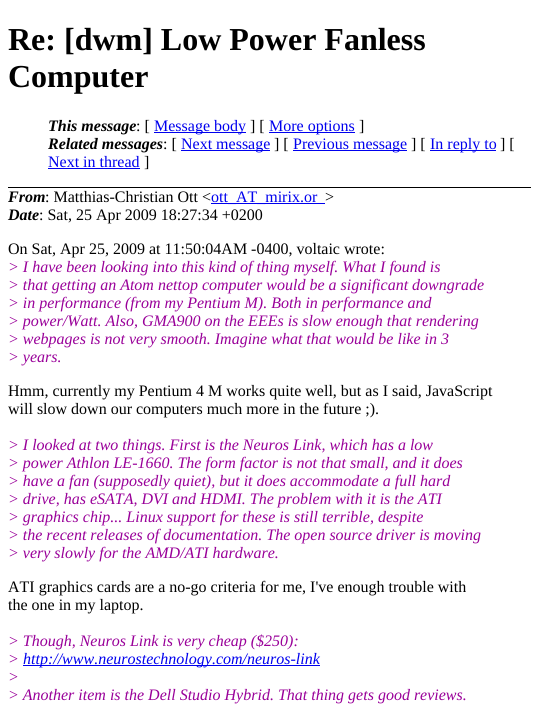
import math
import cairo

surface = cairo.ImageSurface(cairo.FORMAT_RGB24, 539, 709)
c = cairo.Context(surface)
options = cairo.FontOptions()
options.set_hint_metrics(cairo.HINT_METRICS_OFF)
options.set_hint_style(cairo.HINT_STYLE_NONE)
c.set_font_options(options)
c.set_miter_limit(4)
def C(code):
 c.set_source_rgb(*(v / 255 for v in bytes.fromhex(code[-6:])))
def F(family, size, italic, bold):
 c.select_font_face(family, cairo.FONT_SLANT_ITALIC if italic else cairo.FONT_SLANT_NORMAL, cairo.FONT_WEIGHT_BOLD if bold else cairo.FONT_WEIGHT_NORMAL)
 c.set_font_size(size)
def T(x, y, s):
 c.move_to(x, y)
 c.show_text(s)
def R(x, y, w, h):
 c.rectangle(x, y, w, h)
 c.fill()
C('ffffff')
c.paint()
C('000000')
R(8,187,523,1)
F('Liberation Serif',32,0,1)
T(8,50,'Re: [dwm] Low Power Fanless')
T(8,87,'Computer')
F('Liberation Serif',16,1,1)
T(48,131,'This message')
F('Liberation Serif',16,0,0)
T(136,131,': [')
C('0000ee')
R(154,132,92,1)
T(154,131,'Message body')
C('000000')
T(250,131,'] [')
C('0000ee')
R(269,132,86,1)
T(269,131,'More options')
C('000000')
T(359,131,']')
F('Liberation Serif',16,1,1)
T(48,149,'Related messages')
F('Liberation Serif',16,0,0)
T(163,149,': [')
C('0000ee')
R(181,150,89,1)
T(181,149,'Next message')
C('000000')
T(274,149,'] [')
C('0000ee')
R(293,150,114,1)
T(293,149,'Previous message')
C('000000')
T(411,149,'] [')
C('0000ee')
R(430,150,66,1)
T(430,149,'In reply to')
C('000000')
T(500,149,'] [')
C('0000ee')
T(48,167,'Next in thread')
R(48,168,92,1)
C('000000')
T(144,167,']')
F('Liberation Serif',16,1,1)
T(8,202,'From')
F('Liberation Serif',16,0,0)
T(45,202,': Matthias-Christian Ott <')
C('0000ee')
R(211,203,114,1)
T(211,202,'ott_AT_mirix.or')
C('000000')
T(325,202,'>')
F('Liberation Serif',16,1,1)
T(8,220,'Date')
F('Liberation Serif',16,0,0)
T(39,220,': Sat, 25 Apr 2009 18:27:34 +0200')
T(8,254,'On Sat, Apr 25, 2009 at 11:50:04AM -0400, voltaic wrote:')
F('Liberation Serif',16,1,0)
C('990099')
T(8,272,'> I have been looking into this kind of thing myself. What I found is')
T(8,290,'> that getting an Atom nettop computer would be a significant downgrade')
T(8,308,'> in performance (from my Pentium M). Both in performance and')
T(8,326,'> power/Watt. Also, GMA900 on the EEEs is slow enough that rendering')
T(8,344,'> webpages is not very smooth. Imagine what that would be like in 3')
T(8,362,'> years.')
F('Liberation Serif',16,0,0)
C('000000')
T(8,396,'Hmm, currently my Pentium 4 M works quite well, but as I said, JavaScript')
T(8,414,'will slow down our computers much more in the future ;).')
F('Liberation Serif',16,1,0)
C('990099')
T(8,450,'> I looked at two things. First is the Neuros Link, which has a low')
T(8,468,'> power Athlon LE-1660. The form factor is not that small, and it does')
T(8,486,'> have a fan (supposedly quiet), but it does accommodate a full hard')
T(8,504,'> drive, has eSATA, DVI and HDMI. The problem with it is the ATI')
T(8,522,'> graphics chip... Linux support for these is still terrible, despite')
T(8,540,'> the recent releases of documentation. The open source driver is moving')
T(8,558,'> very slowly for the AMD/ATI hardware.')
F('Liberation Serif',16,0,0)
C('000000')
T(8,592,'ATI graphics cards are a no-go criteria for me, I\'ve enough trouble with')
T(8,610,'the one in my laptop.')
F('Liberation Serif',16,1,0)
C('990099')
T(8,646,'> Though, Neuros Link is very cheap ($250):')
T(8,664,'>')
C('0000ee')
R(23,665,297,1)
T(23,664,'http://www.neurostechnology.com/neuros-link')
C('990099')
T(8,682,'>')
T(8,700,'> Another item is the Dell Studio Hybrid. That thing gets good reviews.')
surface.write_to_png('o.png')
